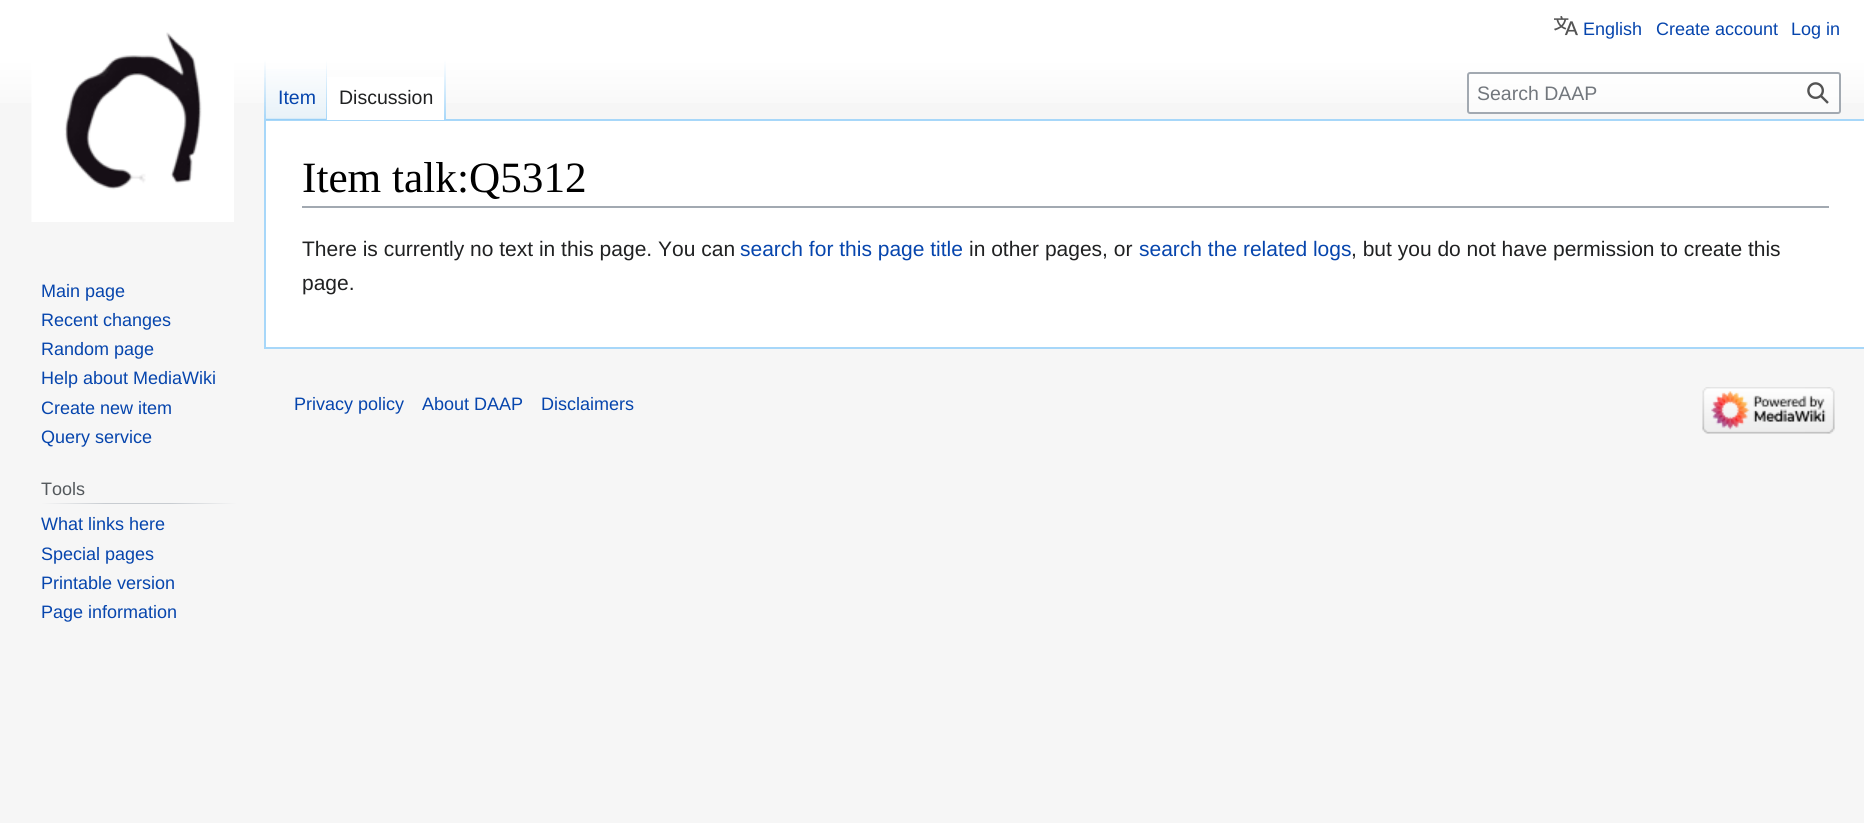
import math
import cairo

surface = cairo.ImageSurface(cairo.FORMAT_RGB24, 1864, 823)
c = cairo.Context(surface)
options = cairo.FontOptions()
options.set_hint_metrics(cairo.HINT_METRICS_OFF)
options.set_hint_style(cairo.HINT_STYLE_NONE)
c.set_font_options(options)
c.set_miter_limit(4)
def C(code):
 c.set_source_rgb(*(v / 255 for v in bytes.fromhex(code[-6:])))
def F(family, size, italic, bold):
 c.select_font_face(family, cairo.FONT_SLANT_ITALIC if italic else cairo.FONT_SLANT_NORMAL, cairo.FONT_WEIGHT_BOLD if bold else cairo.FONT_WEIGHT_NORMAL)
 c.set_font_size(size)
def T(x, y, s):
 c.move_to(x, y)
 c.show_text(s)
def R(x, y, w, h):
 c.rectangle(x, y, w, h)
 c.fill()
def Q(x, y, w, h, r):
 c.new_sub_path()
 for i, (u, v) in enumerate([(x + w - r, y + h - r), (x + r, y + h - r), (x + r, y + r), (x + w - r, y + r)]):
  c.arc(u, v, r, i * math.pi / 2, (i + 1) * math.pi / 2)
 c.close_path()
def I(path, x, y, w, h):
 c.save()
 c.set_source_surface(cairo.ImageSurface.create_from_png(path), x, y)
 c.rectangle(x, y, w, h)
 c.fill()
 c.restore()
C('f6f6f6')
c.paint()
gradient = cairo.LinearGradient(932,0,932,120)
gradient.add_color_stop_rgba(.5,1,1,1,1)
gradient.add_color_stop_rgba(1,0.965,0.965,0.965,1)
c.set_source(gradient)
R(0,0,1864,103)
I('1.png',1554,16,24,20)
F('Liberation Sans',18,0,0)
C('0645ad')
T(1583,35,'English')
T(1656,35,'Create account')
T(1791,35,'Log in')
C('a7d7f9')
R(264,119,1600,2)
R(264,347,1600,2)
R(264,119,2,229)
gradient = cairo.LinearGradient(265,60,265,120)
gradient.add_color_stop_rgba(0,0.655,0.843,0.976,0)
gradient.add_color_stop_rgba(1,0.655,0.843,0.976,1)
c.set_source(gradient)
R(264,60,2,60)
gradient = cairo.LinearGradient(296,120,296,60)
gradient.add_color_stop_rgba(0,0.467,0.757,0.965,1)
gradient.add_color_stop_rgba(.03,0.91,0.949,0.973,1)
gradient.add_color_stop_rgba(1,1,1,1,1)
c.set_source(gradient)
R(266,69,61,51)
gradient = cairo.LinearGradient(326,60,326,120)
gradient.add_color_stop_rgba(0,0.655,0.843,0.976,0)
gradient.add_color_stop_rgba(1,0.655,0.843,0.976,1)
c.set_source(gradient)
R(326,60,1,60)
F('Liberation Sans',19.5,0,0)
C('0645ad')
T(278,104,'Item')
C('ffffff')
R(327,77,117,43)
gradient = cairo.LinearGradient(445,60,445,120)
gradient.add_color_stop_rgba(0,1,1,1,1)
gradient.add_color_stop_rgba(1,0.655,0.843,0.976,1)
c.set_source(gradient)
R(444,60,2,60)
C('202122')
T(339,104,'Discussion')
c.set_source_rgba(1,1,1,0.5)
Q(1468,73,372,40,2)
c.fill_preserve()
C('a2a9b1')
c.stroke()
C('72777d')
T(1477,100,'Search DAAP')
I('2.png',1807,82,22,22)
I('3.png',31,32,203,190)
F('Liberation Sans',18,0,0)
C('0645ad')
T(41,297,'Main page')
T(41,326,'Recent changes')
T(41,355,'Random page')
T(41,384,'Help about MediaWiki')
T(41,414,'Create new item')
T(41,443,'Query service')
gradient = cairo.LinearGradient(41,503,237,503)
gradient.add_color_stop_rgba(0,0.965,0.965,0.965,1)
gradient.add_color_stop_rgba(.33,0.784,0.8,0.82,1)
gradient.add_color_stop_rgba(.66,0.784,0.8,0.82,1)
gradient.add_color_stop_rgba(1,0.965,0.965,0.965,1)
c.set_source(gradient)
R(41,503,196,1)
C('54595d')
T(41,495,'Tools')
C('0645ad')
T(41,530,'What links here')
T(41,560,'Special pages')
T(41,589,'Printable version')
T(41,618,'Page information')
C('ffffff')
R(266,121,1598,226)
C('a2a9b1')
R(302,206,1527,2)
F('Liberation Serif',43.25,0,0)
C('000000')
T(302,192,'Item talk:Q5312')
F('Liberation Sans',21,0,0)
C('202122')
T(302,256,'There is currently no text in this page. You can')
C('0645ad')
T(740,256,'search for this page title')
C('202122')
T(969,256,'in other pages, or')
C('0645ad')
T(1139,256,'search the related logs')
C('202122')
T(1351,256,', but you do not have permission to create this')
T(302,290,'page.')
F('Liberation Sans',18,0,0)
C('0645ad')
T(294,410,'Privacy policy')
T(422,410,'About DAAP')
T(541,410,'Disclaimers')
I('4.png',1702,387,133,47)
surface.write_to_png('o.png')
